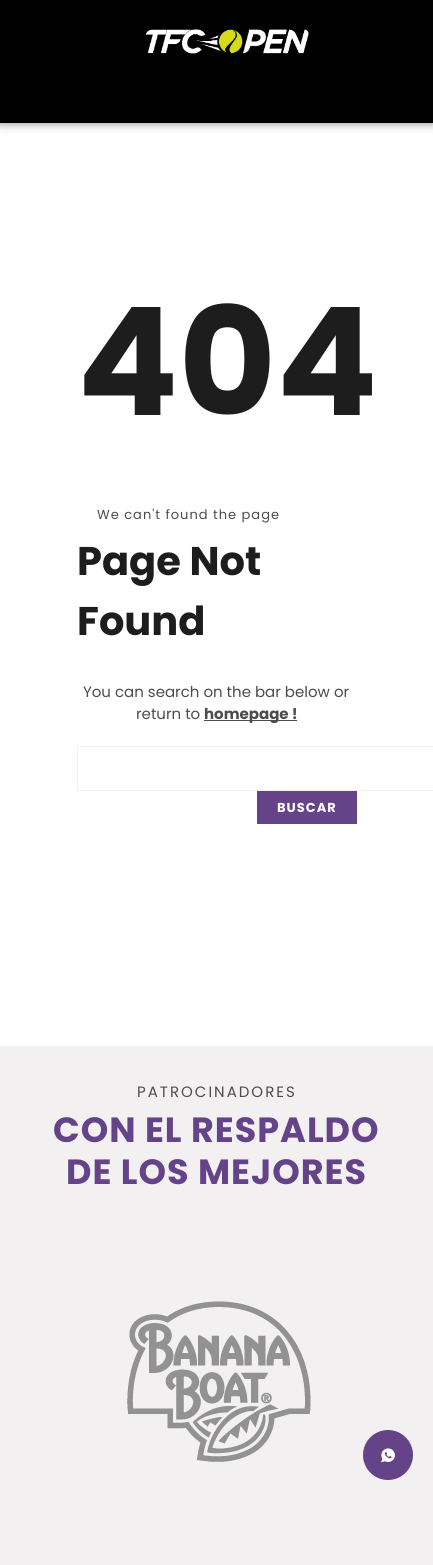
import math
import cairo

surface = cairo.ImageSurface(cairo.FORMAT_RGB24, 433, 1565)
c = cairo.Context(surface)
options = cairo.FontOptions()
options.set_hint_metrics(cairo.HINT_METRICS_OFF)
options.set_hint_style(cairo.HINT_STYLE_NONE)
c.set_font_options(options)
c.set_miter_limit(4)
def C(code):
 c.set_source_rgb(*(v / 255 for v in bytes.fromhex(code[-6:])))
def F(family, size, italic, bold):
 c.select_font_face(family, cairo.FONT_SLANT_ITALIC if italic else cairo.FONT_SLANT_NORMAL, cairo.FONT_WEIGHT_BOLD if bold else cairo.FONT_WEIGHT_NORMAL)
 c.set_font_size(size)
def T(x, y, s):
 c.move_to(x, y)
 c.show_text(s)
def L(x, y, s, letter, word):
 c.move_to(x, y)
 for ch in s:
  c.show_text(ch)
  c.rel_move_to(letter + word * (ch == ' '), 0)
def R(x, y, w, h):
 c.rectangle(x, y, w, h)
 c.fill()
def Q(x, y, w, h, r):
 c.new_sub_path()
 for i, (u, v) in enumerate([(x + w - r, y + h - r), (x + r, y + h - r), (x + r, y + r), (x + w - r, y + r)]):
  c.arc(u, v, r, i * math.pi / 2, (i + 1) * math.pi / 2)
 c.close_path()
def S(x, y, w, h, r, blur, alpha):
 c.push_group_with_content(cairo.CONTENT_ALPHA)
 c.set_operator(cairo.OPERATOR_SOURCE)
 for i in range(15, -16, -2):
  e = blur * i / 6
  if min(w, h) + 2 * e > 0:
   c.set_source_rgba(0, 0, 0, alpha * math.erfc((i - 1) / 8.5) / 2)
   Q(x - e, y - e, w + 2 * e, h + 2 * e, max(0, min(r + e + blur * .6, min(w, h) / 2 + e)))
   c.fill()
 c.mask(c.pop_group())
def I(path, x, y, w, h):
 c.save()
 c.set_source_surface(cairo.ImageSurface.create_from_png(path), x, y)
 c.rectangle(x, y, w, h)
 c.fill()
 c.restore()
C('ffffff')
c.paint()
C('000000')
S(0,0,433,123,0,5,.5)
C('000000')
R(0,0,433,123)
I('1.png',145,29,164,25)
F('Poppins',150,0,1)
C('1d1d1d')
T(77,415,'404')
F('Poppins',13,0,0)
C('4c4c4c')
L(97,519,'We can\'t found the page',1,0)
F('Poppins',40,0,1)
C('1d1d1d')
T(77,575,'Page Not')
T(77,635,'Found')
F('Poppins',15,0,0)
C('4c4c4c')
T(83,697,'You can search on the bar below or')
T(136,719,'return to')
R(204,720,93,1)
F('Poppins',15,0,1)
T(204,719,'homepage !')
c.rectangle(77.5,746.5,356,44)
C('f1f1f1')
c.set_line_width(1)
c.stroke()
C('644389')
R(257,791,100,33)
F('Poppins',13,0,1)
C('ffffff')
L(277,812,'BUSCAR',1,0)
C('f2f0f0')
R(0,1046,433,519)
F('Poppins',15,0,0)
C('4c4c4c')
L(137,1097,'PATROCINADORES',2,0)
F('Poppins',35,0,1)
C('644389')
L(53,1142,'CON EL RESPALDO',1,0)
L(66,1184,'DE LOS MEJORES',1,0)
I('2.png',127,1301,184,161)
c.arc(388,1455,25,0,2 * math.pi)
c.fill()
I('3.png',381,1448,14,15)
surface.write_to_png('o.png')
